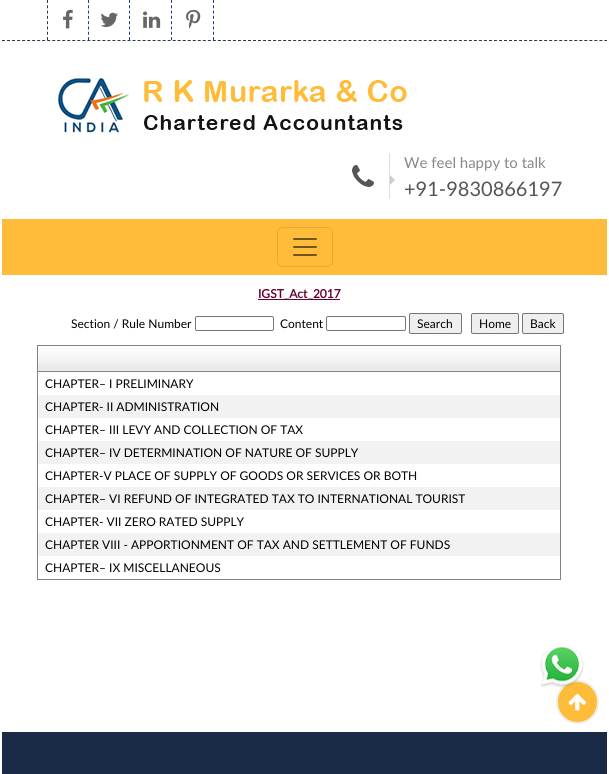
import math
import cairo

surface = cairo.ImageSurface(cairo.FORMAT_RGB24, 609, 774)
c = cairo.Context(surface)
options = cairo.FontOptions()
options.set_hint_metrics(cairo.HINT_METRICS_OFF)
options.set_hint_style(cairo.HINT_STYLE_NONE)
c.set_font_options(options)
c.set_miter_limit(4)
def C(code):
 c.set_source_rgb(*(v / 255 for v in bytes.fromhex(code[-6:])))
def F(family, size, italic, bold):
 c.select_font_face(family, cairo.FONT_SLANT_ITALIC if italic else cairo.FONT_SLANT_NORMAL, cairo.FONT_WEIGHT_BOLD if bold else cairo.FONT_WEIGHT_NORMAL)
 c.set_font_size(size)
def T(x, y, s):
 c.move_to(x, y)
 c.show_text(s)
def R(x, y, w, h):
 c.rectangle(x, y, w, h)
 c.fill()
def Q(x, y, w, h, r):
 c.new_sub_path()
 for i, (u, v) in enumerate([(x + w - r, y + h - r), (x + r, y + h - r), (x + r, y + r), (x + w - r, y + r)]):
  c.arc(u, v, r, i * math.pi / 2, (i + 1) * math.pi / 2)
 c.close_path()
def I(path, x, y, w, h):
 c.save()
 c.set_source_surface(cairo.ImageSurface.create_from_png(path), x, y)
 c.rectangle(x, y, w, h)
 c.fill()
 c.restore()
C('ffffff')
c.paint()
c.new_path()
c.move_to(2,40.5)
c.line_to(607,40.5)
C('2c374b')
c.set_line_width(1)
c.set_dash([3,2.02])
c.stroke()
c.new_path()
c.move_to(47.5,0)
c.line_to(47.5,40)
c.set_dash([3,2.29])
c.stroke()
c.new_path()
c.move_to(88.5,0)
c.line_to(88.5,40)
C('193e91')
c.stroke()
I('1.png',63,9,10,20)
c.new_path()
c.move_to(129.5,0)
c.line_to(129.5,40)
c.stroke()
I('2.png',100,12,18,15)
c.new_path()
c.move_to(171.5,0)
c.line_to(171.5,40)
c.stroke()
I('3.png',143,11,18,17)
c.new_path()
c.move_to(213.5,0)
c.line_to(213.5,40)
c.stroke()
I('4.png',186,9,15,20)
I('5.png',58,78,349,56)
C('dddddd')
R(389,153,1,46)
I('6.png',352,165,22,22)
F('Lato',15,0,0)
C('888888')
T(404,168,'We feel happy to talk')
C('cccccc')
c.new_path()
c.move_to(390,185)
c.line_to(390,175)
c.line_to(395,180)
c.close_path()
c.fill()
F('Lato',20,0,0)
C('555555')
T(404,196,'+91-9830866197')
C('ffbc3b')
R(2,219,605,56)
Q(277.5,227.5,55,39,5.5)
C('e6a935')
c.set_dash([])
c.stroke()
I('7.png',293,238,24,18)
C('660033')
R(258,299,82,1)
F('Lato',12,0,1)
T(258,298,'IGST_Act_2017')
F('Lato',12,0,0)
C('000000')
T(71,328,'Section / Rule Number')
Q(195.5,316.5,78,14,1.5)
C('767676')
c.stroke()
C('000000')
T(280,328,'Content')
Q(326.5,316.5,79,14,1.5)
C('767676')
c.stroke()
C('efefef')
Q(409.5,313.5,52,20,1.5)
c.fill_preserve()
C('767676')
c.stroke()
C('000000')
T(417,328,'Search')
C('efefef')
Q(471.5,313.5,47,20,1.5)
c.fill_preserve()
C('767676')
c.stroke()
C('000000')
T(479,328,'Home')
C('efefef')
Q(522.5,313.5,41,20,1.5)
c.fill_preserve()
C('767676')
c.stroke()
C('000000')
T(530,328,'Back')
c.rectangle(37.5,345.5,523,234)
C('828282')
c.stroke()
C('eaeaea')
R(38,365,522,6)
I('8.png',38,346,522,19)
C('828282')
R(38,371,522,1)
C('000000')
T(45,388,'CHAPTER– I PRELIMINARY')
C('f2f2f2')
R(38,395,522,23)
C('000000')
T(45,411,'CHAPTER- II ADMINISTRATION')
T(45,434,'CHAPTER– III LEVY AND COLLECTION OF TAX')
C('f2f2f2')
R(38,441,522,23)
C('000000')
T(45,457,'CHAPTER– IV DETERMINATION OF NATURE OF SUPPLY')
T(45,480,'CHAPTER-V PLACE OF SUPPLY OF GOODS OR SERVICES OR BOTH')
C('f2f2f2')
R(38,487,522,23)
C('000000')
T(45,503,'CHAPTER– VI REFUND OF INTEGRATED TAX TO INTERNATIONAL TOURIST')
T(45,526,'CHAPTER- VII ZERO RATED SUPPLY')
C('f2f2f2')
R(38,533,522,23)
C('000000')
T(45,549,'CHAPTER VIII - APPORTIONMENT OF TAX AND SETTLEMENT OF FUNDS')
T(45,572,'CHAPTER– IX MISCELLANEOUS')
C('ffbc3b')
Q(557,681,41,42,20.5)
c.fill_preserve()
C('eeeeee')
c.set_line_width(2)
c.stroke()
I('9.png',540,644,44,44)
I('10.png',568,694,18,17)
C('192a46')
R(2,732,605,42)
surface.write_to_png('o.png')
